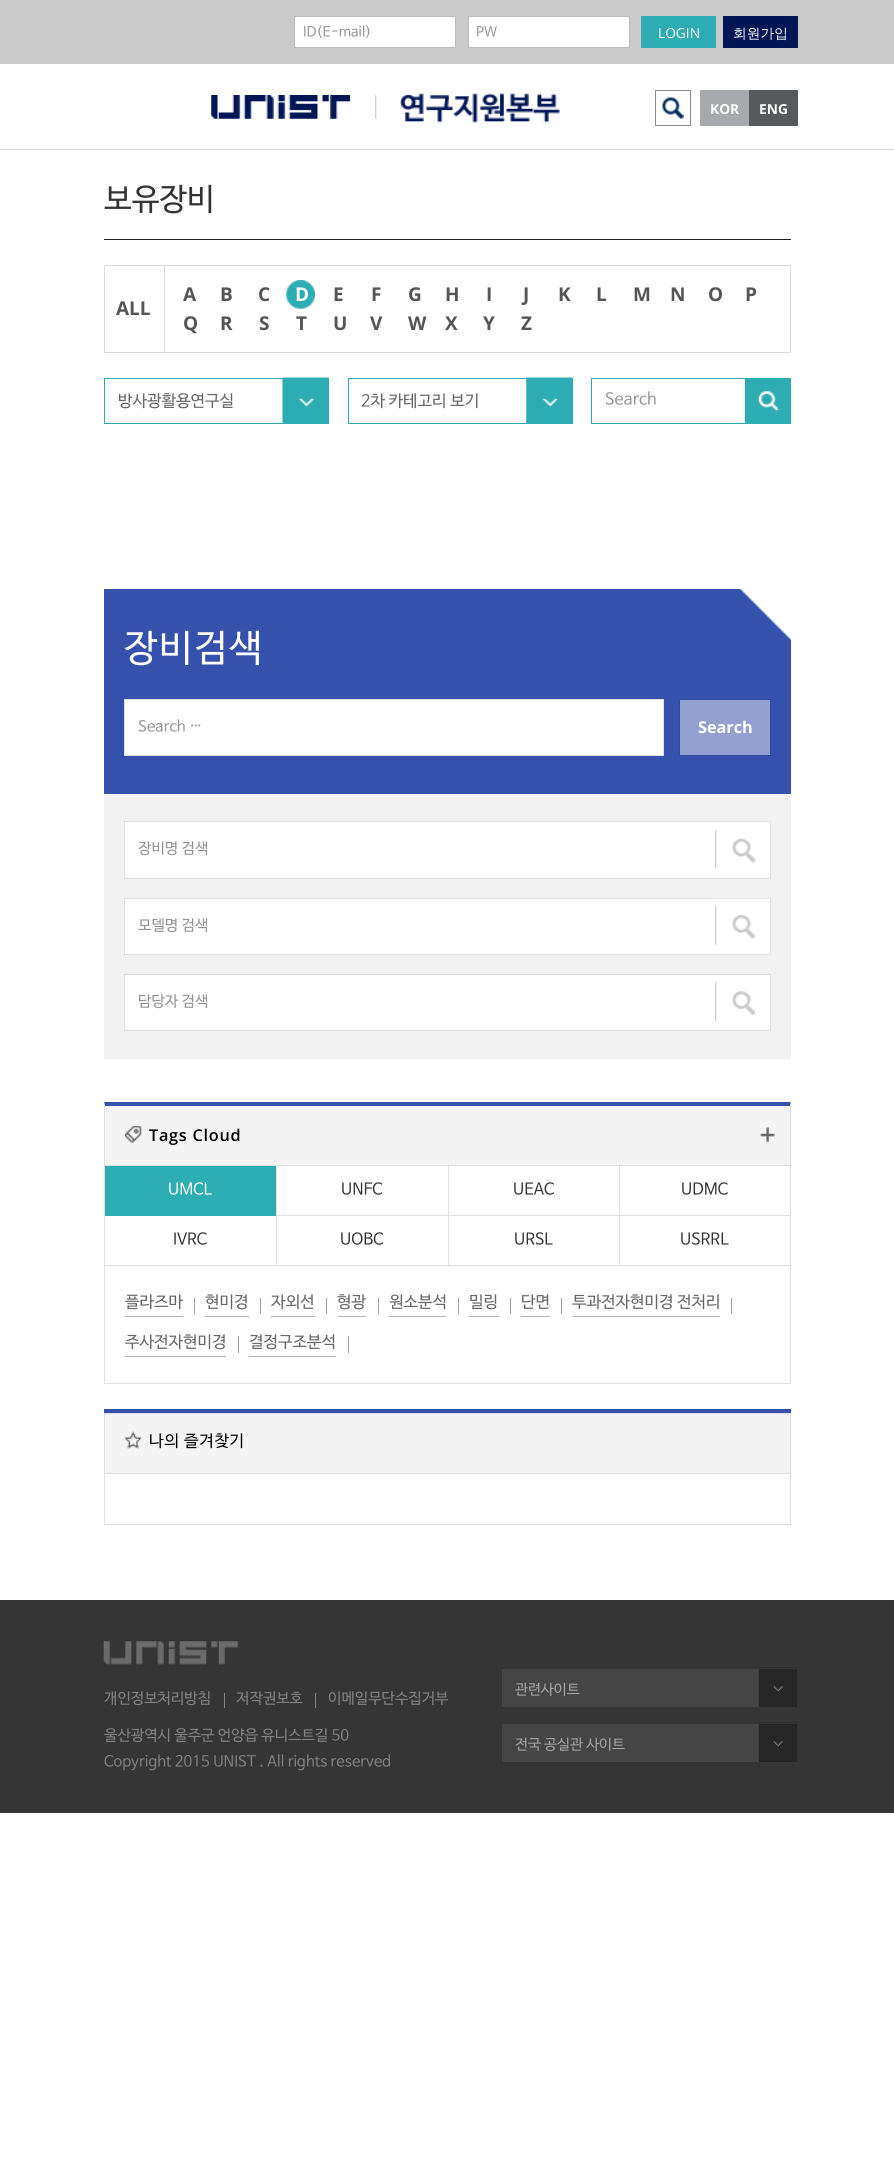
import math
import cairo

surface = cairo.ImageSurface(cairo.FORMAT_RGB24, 894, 2166)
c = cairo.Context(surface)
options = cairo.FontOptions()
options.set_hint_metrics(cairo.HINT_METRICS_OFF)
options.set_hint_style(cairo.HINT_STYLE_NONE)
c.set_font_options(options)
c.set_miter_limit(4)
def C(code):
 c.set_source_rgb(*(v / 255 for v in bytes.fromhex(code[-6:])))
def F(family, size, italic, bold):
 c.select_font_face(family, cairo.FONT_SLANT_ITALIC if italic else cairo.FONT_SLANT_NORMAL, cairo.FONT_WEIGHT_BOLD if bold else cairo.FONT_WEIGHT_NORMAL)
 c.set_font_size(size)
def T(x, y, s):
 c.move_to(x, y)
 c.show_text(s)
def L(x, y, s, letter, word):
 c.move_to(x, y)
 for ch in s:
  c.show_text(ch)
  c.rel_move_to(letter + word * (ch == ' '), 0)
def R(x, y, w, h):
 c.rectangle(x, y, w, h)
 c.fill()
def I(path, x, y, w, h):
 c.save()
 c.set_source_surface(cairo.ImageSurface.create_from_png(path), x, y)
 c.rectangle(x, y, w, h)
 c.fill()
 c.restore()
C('ffffff')
c.paint()
I('1.png',0,148,894,2)
C('cbcbcb')
R(0,0,894,64)
C('ffffff')
c.rectangle(294.5,16.5,161,31)
c.fill_preserve()
C('bcbcbc')
c.set_line_width(1)
c.stroke()
F('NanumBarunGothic',13.75,0,0)
C('939393')
T(303,36,'ID(E-mail)')
C('ffffff')
c.rectangle(468.5,16.5,161,31)
c.fill_preserve()
C('bcbcbc')
c.stroke()
C('939393')
T(476,36,'PW')
C('2eacb4')
R(641,16,75,32)
F('Open Sans',13.75,0,0)
C('ffffff')
T(658,38,'LOGIN')
C('011655')
R(723,16,75,32)
F('WenQuanYi Zen Hei Medium',13.75,0,0)
C('ffffff')
T(733,38,'회원가입')
C('a7a9ac')
R(700,90,49,36)
F('Open Sans',13.75,0,1)
C('ffffff')
T(710,114,'KOR')
C('57595b')
R(749,90,49,36)
C('ffffff')
T(759,114,'ENG')
I('2.png',211,95,139,24)
I('3.png',375,93,185,30)
I('4.png',662,97,22,22)
c.rectangle(655.5,90.5,35,35)
C('888f9c')
c.stroke()
C('222222')
R(104,239,687,1)
F('NanumBarunGothic',31,0,0)
C('333333')
T(104,209,'보유장비')
c.rectangle(104.5,265.5,686,87)
C('dadada')
c.stroke()
F('Open Sans',19,0,1)
C('555555')
T(183,301,'A')
T(220,301,'B')
T(258,301,'C')
I('5.png',286,280,29,29)
C('ffffff')
T(295,301,'D')
C('555555')
T(333,301,'E')
T(371,301,'F')
T(408,301,'G')
T(445,301,'H')
T(486,301,'I')
T(523,301,'J')
T(558,301,'K')
T(596,301,'L')
T(633,301,'M')
T(670,301,'N')
T(708,301,'O')
T(745,301,'P')
C('dadada')
R(164,266,1,85)
C('555555')
T(116,315,'ALL')
T(183,330,'Q')
T(220,330,'R')
T(259,330,'S')
T(296,330,'T')
T(333,330,'U')
T(370,330,'V')
T(408,330,'W')
T(445,330,'X')
T(483,330,'Y')
T(521,330,'Z')
I('6.png',282,377,47,46)
c.rectangle(104.5,378.5,224,45)
C('2eacb4')
c.stroke()
F('NanumBarunGothic',16.25,0,0)
C('666666')
T(118,406,'방사광활용연구실')
I('7.png',526,377,47,46)
c.rectangle(348.5,378.5,224,45)
C('2eacb4')
c.stroke()
C('666666')
T(361,406,'2차 카테고리 보기')
c.rectangle(591.5,378.5,164,45)
C('2eacb4')
c.stroke()
C('939393')
T(605,404,'Search')
C('2eacb4')
R(745,378,46,46)
I('8.png',758,390,21,22)
C('3651ab')
R(104,589,687,205)
I('9.png',740,589,51,51)
F('NanumBarunGothic',37.5,0,0)
C('ffffff')
L(124,660,'장비검색',1.5,0)
c.rectangle(124.5,699.5,539,56)
c.fill_preserve()
C('dfdfdf')
c.stroke()
F('NanumBarunGothic',15,0,0)
C('939393')
T(138,731,'Search …')
C('919fd1')
c.rectangle(679.5,699.5,91,56)
c.fill_preserve()
C('30499f')
c.stroke()
F('Open Sans',16.25,0,1)
C('ffffff')
T(698,733,'Search')
C('f2f2f2')
R(104,794,687,265)
C('ffffff')
c.rectangle(124.5,821.5,646,57)
c.fill_preserve()
C('dfdfdf')
c.stroke()
F('NanumBarunGothic',15,0,0)
C('939393')
T(138,853,'장비명 검색')
I('10.png',715,830,41,39)
C('ffffff')
c.rectangle(124.5,898.5,646,56)
c.fill_preserve()
C('dfdfdf')
c.stroke()
C('939393')
T(138,930,'모델명 검색')
I('11.png',715,898,55,48)
C('ffffff')
c.rectangle(124.5,974.5,646,56)
c.fill_preserve()
C('dfdfdf')
c.stroke()
C('939393')
T(138,1006,'담당자 검색')
I('12.png',715,982,41,40)
C('3651ab')
c.new_path()
c.move_to(104,1102)
c.line_to(791,1102)
c.line_to(790,1106)
c.line_to(105,1106)
c.close_path()
c.fill()
C('dfdfdf')
c.new_path()
c.move_to(791,1102)
c.line_to(791,1384)
c.line_to(790,1382)
c.line_to(790,1106)
c.close_path()
c.fill()
R(104,1383,687,1)
c.new_path()
c.move_to(104,1384)
c.line_to(104,1102)
c.line_to(105,1106)
c.line_to(105,1382)
c.close_path()
c.fill()
C('f4f4f4')
R(105,1106,685,59)
C('dfdfdf')
R(105,1165,685,1)
I('13.png',125,1126,17,17)
F('Open Sans SemiBold',16.25,0,0)
C('000000')
L(149,1141,'Tags Cloud',.75,0)
I('14.png',760,1127,15,16)
C('2eacb4')
R(105,1166,171,50)
F('NanumBarunGothic',16,0,0)
C('ffffff')
T(168,1194,'UMCL')
C('dfdfdf')
R(276,1215,514,1)
R(276,1166,1,50)
C('333333')
T(341,1194,'UNFC')
C('dfdfdf')
R(448,1166,1,50)
C('333333')
T(513,1194,'UEAC')
C('dfdfdf')
R(619,1166,1,50)
C('333333')
T(681,1194,'UDMC')
C('dfdfdf')
R(105,1265,685,1)
C('333333')
T(173,1244,'IVRC')
C('dfdfdf')
R(276,1216,1,50)
C('333333')
T(340,1244,'UOBC')
C('dfdfdf')
R(448,1216,1,50)
C('333333')
T(514,1244,'URSL')
C('dfdfdf')
R(619,1216,1,50)
C('333333')
T(680,1244,'USRRL')
C('b2b2b2')
R(125,1316,58,1)
F('NanumBarunGothic',16.25,0,0)
C('666666')
T(125,1307,'플라즈마')
C('a3a3a3')
R(194,1298,1,16)
C('b2b2b2')
R(205,1316,44,1)
C('666666')
T(205,1307,'현미경')
C('a3a3a3')
R(260,1298,1,16)
C('b2b2b2')
R(271,1316,44,1)
C('666666')
T(271,1307,'자외선')
C('a3a3a3')
R(326,1298,1,16)
C('b2b2b2')
R(338,1316,28,1)
C('666666')
T(337,1307,'형광')
C('a3a3a3')
R(378,1298,1,16)
C('b2b2b2')
R(389,1316,57,1)
C('666666')
T(389,1307,'원소분석')
C('a3a3a3')
R(458,1298,1,16)
C('b2b2b2')
R(469,1316,30,1)
C('666666')
T(469,1307,'밀링')
C('a3a3a3')
R(510,1298,1,16)
C('b2b2b2')
R(521,1316,29,1)
C('666666')
T(521,1307,'단면')
C('a3a3a3')
R(561,1298,1,16)
C('b2b2b2')
R(573,1316,147,1)
C('666666')
T(572,1307,'투과전자현미경 전처리')
C('a3a3a3')
R(731,1298,1,16)
C('b2b2b2')
R(125,1356,101,1)
C('666666')
T(125,1347,'주사전자현미경')
C('a3a3a3')
R(238,1336,1,17)
C('b2b2b2')
R(249,1356,87,1)
C('666666')
T(249,1347,'결정구조분석')
C('a3a3a3')
R(348,1336,1,17)
C('3651ab')
R(104,1409,687,4)
c.rectangle(104.5,1413.5,686,111)
C('dfdfdf')
c.stroke()
C('f4f4f4')
R(105,1414,685,59)
C('dfdfdf')
R(105,1473,685,1)
I('15.png',125,1431,17,18)
C('000000')
L(149,1446,'나의 즐겨찾기',.75,0)
C('353535')
R(0,1600,894,213)
I('16.png',103,1641,136,24)
F('NanumBarunGothic',15,0,0)
C('838383')
T(104,1703,'개인정보처리방침')
R(224,1693,1,15)
T(236,1703,'저작권보호')
R(315,1693,1,15)
T(328,1703,'이메일무단수집거부')
T(104,1740,'울산광역시 울주군 언양읍 유니스트길 50')
T(104,1766,'Copyright 2015 UNIST . All rights reserved')
C('454545')
R(502,1669,257,38)
I('17.png',758,1667,40,40)
c.rectangle(501.5,1668.5,296,39)
C('353535')
c.stroke()
F('NanumBarunGothic',14.5,0,0)
C('a5a5a5')
T(515,1694,'관련사이트')
C('454545')
R(502,1724,257,38)
I('17.png',758,1722,40,40)
c.rectangle(501.5,1723.5,296,39)
C('353535')
c.stroke()
C('a5a5a5')
T(515,1749,'전국 공실관 사이트')
surface.write_to_png('o.png')
